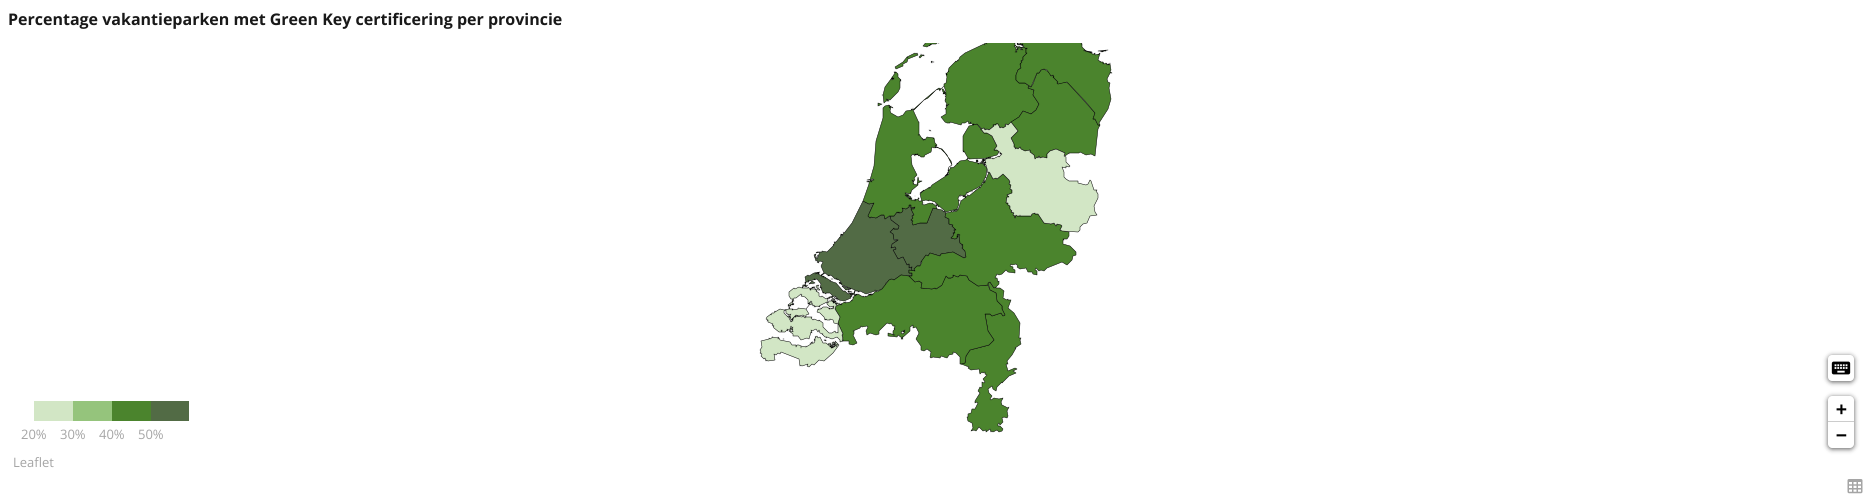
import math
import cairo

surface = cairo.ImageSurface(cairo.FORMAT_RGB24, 1872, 501)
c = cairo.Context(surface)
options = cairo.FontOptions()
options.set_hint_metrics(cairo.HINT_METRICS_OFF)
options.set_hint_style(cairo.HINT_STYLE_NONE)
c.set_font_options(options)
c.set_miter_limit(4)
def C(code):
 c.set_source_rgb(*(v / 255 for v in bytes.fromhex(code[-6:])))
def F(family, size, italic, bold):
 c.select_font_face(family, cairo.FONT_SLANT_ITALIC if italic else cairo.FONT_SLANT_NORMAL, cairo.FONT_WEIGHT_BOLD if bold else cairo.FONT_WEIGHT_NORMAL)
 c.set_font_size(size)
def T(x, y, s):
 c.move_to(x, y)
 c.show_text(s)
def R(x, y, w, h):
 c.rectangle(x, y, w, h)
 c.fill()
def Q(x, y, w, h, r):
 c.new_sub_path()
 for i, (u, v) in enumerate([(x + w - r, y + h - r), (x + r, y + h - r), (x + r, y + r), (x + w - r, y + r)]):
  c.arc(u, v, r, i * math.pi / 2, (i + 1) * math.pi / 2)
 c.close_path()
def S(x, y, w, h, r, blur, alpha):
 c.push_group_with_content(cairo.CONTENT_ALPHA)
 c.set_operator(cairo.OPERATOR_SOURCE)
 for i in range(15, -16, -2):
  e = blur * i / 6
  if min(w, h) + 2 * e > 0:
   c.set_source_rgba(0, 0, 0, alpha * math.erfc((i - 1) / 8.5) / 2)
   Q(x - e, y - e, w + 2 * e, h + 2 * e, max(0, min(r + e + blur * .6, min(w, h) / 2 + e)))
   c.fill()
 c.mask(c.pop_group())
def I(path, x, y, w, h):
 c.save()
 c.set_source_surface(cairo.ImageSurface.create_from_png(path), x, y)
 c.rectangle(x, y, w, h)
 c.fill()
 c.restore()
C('ffffff')
c.paint()
F('Open Sans',16,0,1)
C('191919')
T(8,25,'Percentage vakantieparken met Green Key certificering per provincie')
I('1.png',759,43,354,390)
C('000000')
S(1828,356,26,26,4,2.5,.65)
C('ffffff')
Q(1828,355,26,26,4)
c.fill()
I('2.png',1831,361,20,14)
C('000000')
S(1828,397,26,52,4,2.5,.65)
C('ffffff')
c.new_path()
c.move_to(1832,396)
c.line_to(1850,396)
c.curve_to(1852,396,1854,398,1854,400)
c.line_to(1854,422)
c.line_to(1828,422)
c.line_to(1828,400)
c.curve_to(1828,398,1830,396,1832,396)
c.close_path()
c.fill()
C('cccccc')
R(1828,421,26,1)
F('DejaVu Sans Mono',18,0,1)
C('000000')
T(1836,415,'+')
C('ffffff')
c.new_path()
c.move_to(1828,422)
c.line_to(1854,422)
c.line_to(1854,444)
c.curve_to(1854,446,1852,448,1850,448)
c.line_to(1832,448)
c.curve_to(1830,448,1828,446,1828,444)
c.close_path()
c.fill()
C('000000')
T(1836,441,'−')
F('Open Sans',13,0,0)
C('a5a5a5')
T(13,467,'Leaflet')
C('d2e6c5')
R(34,401,39,20)
C('95c47c')
R(73,401,39,20)
C('4b842d')
R(112,401,39,20)
C('526b45')
R(151,401,38,20)
C('a5a5a5')
T(21,439,'20%')
T(60,439,'30%')
T(99,439,'40%')
T(138,439,'50%')
I('3.png',1847,479,16,15)
surface.write_to_png('o.png')
